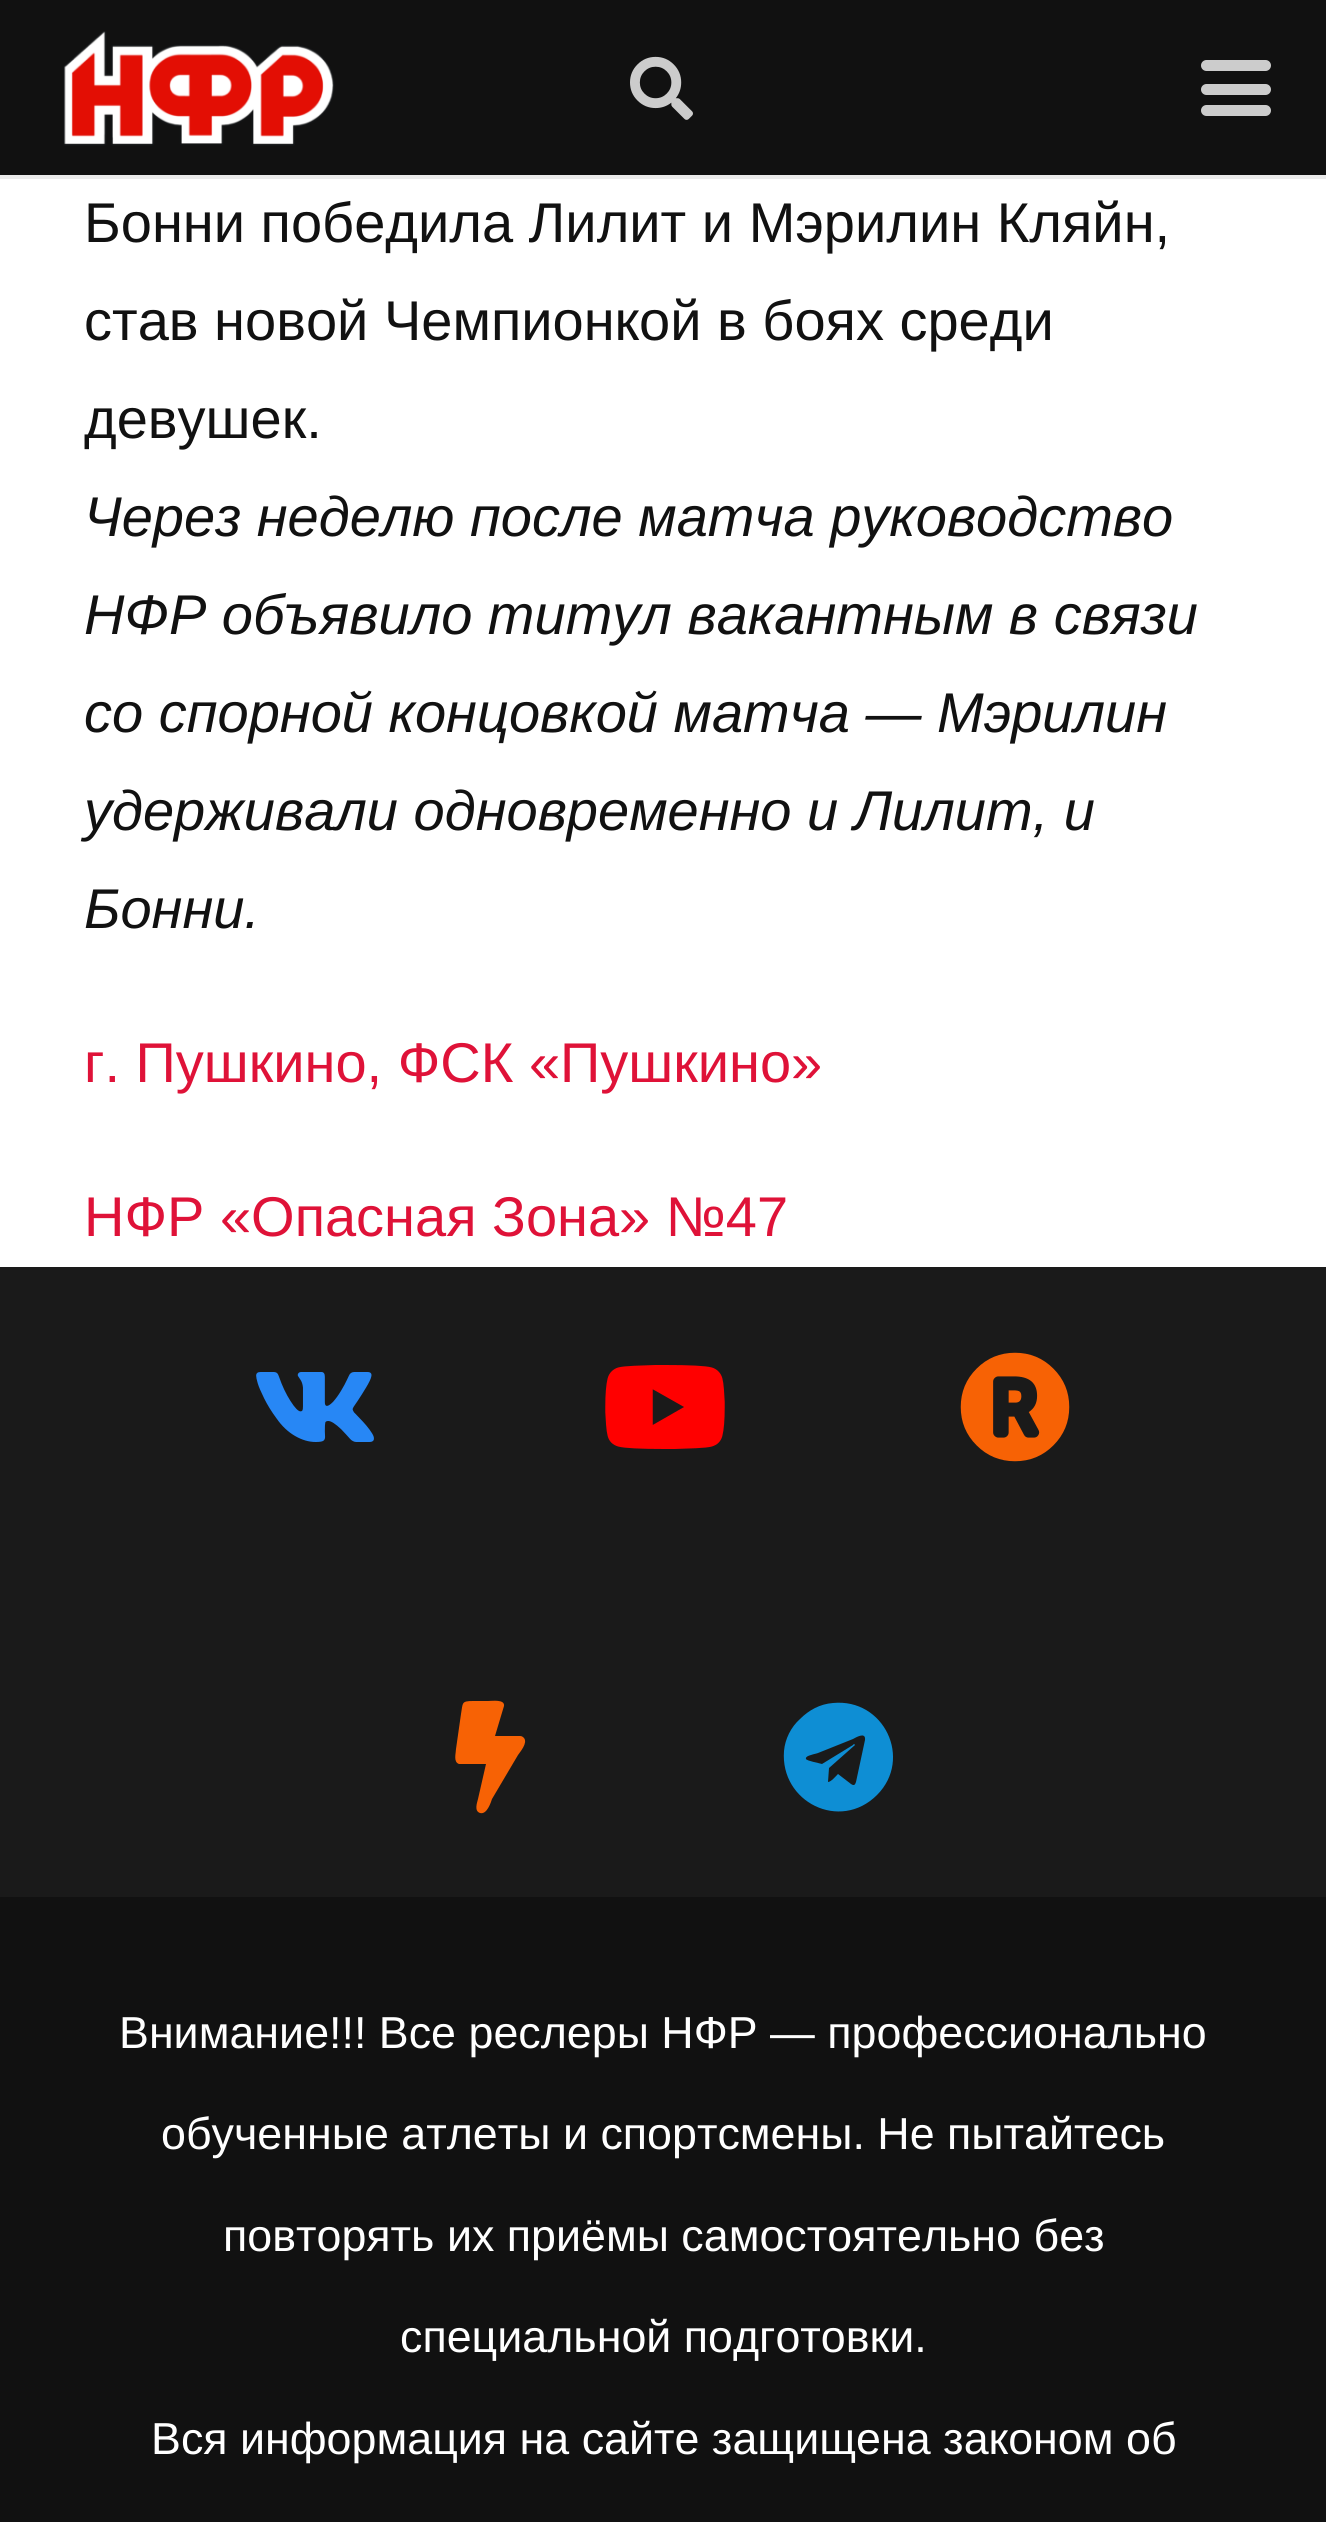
import math
import cairo

surface = cairo.ImageSurface(cairo.FORMAT_RGB24, 1326, 2522)
c = cairo.Context(surface)
options = cairo.FontOptions()
options.set_hint_metrics(cairo.HINT_METRICS_OFF)
options.set_hint_style(cairo.HINT_STYLE_NONE)
c.set_font_options(options)
c.set_miter_limit(4)
def C(code):
 c.set_source_rgb(*(v / 255 for v in bytes.fromhex(code[-6:])))
def F(family, size, italic, bold):
 c.select_font_face(family, cairo.FONT_SLANT_ITALIC if italic else cairo.FONT_SLANT_NORMAL, cairo.FONT_WEIGHT_BOLD if bold else cairo.FONT_WEIGHT_NORMAL)
 c.set_font_size(size)
def T(x, y, s):
 c.move_to(x, y)
 c.show_text(s)
def R(x, y, w, h):
 c.rectangle(x, y, w, h)
 c.fill()
def Q(x, y, w, h, r):
 c.new_sub_path()
 for i, (u, v) in enumerate([(x + w - r, y + h - r), (x + r, y + h - r), (x + r, y + r), (x + w - r, y + r)]):
  c.arc(u, v, r, i * math.pi / 2, (i + 1) * math.pi / 2)
 c.close_path()
def I(path, x, y, w, h):
 c.save()
 c.set_source_surface(cairo.ImageSurface.create_from_png(path), x, y)
 c.rectangle(x, y, w, h)
 c.fill()
 c.restore()
C('ffffff')
c.paint()
C('ebebeb')
c.new_path()
c.move_to(0,175)
c.line_to(0,179)
c.line_to(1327,179)
c.line_to(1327,4)
c.line_to(1326,4)
c.line_to(1326,175)
c.close_path()
c.fill()
C('111111')
R(0,0,1326,175)
I('1.png',63,31,272,115)
I('2.png',630,56,63,64)
C('cccccc')
Q(1201,84,70,11,5.5)
c.fill()
Q(1201,60,70,11,5.5)
c.fill()
Q(1201,105,70,11,5.5)
c.fill()
F('Liberation Sans',56,0,0)
C('111111')
T(84,242,'Бонни победила Лилит и Мэрилин Кляйн,')
T(84,340,'став новой Чемпионкой в боях среди')
T(84,438,'девушек.')
F('Liberation Sans',56,1,0)
T(84,536,'Через неделю после матча руководство')
T(84,634,'НФР объявило титул вакантным в связи')
T(84,732,'со спорной концовкой матча — Мэрилин')
T(84,830,'удерживали одновременно и Лилит, и')
T(84,928,'Бонни.')
F('Liberation Sans',56,0,0)
C('df1238')
T(84,1082,'г. Пушкино, ФСК «Пушкино»')
T(84,1236,'НФР «Опасная Зона» №47')
C('1a1a1a')
R(0,1267,1326,630)
I('3.png',256,1372,118,70)
I('4.png',605,1365,120,84)
I('5.png',960,1352,110,110)
C('f76205')
c.new_path()
c.move_to(520,1736)
c.curve_to(522,1736,523,1737,524,1738)
c.curve_to(528,1743,520,1752,518,1755)
c.line_to(492,1799)
c.curve_to(491,1802,487,1815,480,1813)
c.curve_to(474,1811,477,1803,478,1799)
c.line_to(486,1764)
c.line_to(459,1764)
c.curve_to(453,1762,456,1753,456,1749)
c.line_to(461,1714)
c.curve_to(463,1703,461,1701,473,1701)
c.line_to(488,1701)
c.curve_to(492,1701,505,1699,504,1706)
c.line_to(495,1736)
c.close_path()
c.fill()
C('0e8ed4')
c.new_path()
c.move_to(800,1719)
c.curve_to(809,1710,820,1704,833,1703)
c.curve_to(884,1698,913,1759,877,1795)
c.curve_to(840,1832,780,1802,784,1751)
c.curve_to(785,1739,791,1727,800,1719)
c.close_path()
c.move_to(865,1740)
c.curve_to(866,1731,855,1738,853,1739)
c.line_to(818,1753)
c.curve_to(811,1755,805,1756,806,1759)
c.curve_to(807,1761,819,1763,822,1764)
c.line_to(853,1745)
c.curve_to(853,1744,855,1744,855,1745)
c.line_to(829,1768)
c.line_to(828,1782)
c.curve_to(831,1782,836,1776,838,1774)
c.line_to(851,1784)
c.curve_to(854,1786,855,1785,856,1782)
c.close_path()
c.fill()
C('111111')
R(0,1897,1326,625)
F('Liberation Sans',44.8,0,0)
C('ffffff')
T(119,2048,'Внимание!!! Все реслеры НФР — профессионально')
T(161,2149,'обученные атлеты и спортсмены. Не пытайтесь')
T(223,2251,'повторять их приёмы самостоятельно без')
T(400,2352,'специальной подготовки.')
T(151,2454,'Вся информация на сайте защищена законом об')
surface.write_to_png('o.png')
